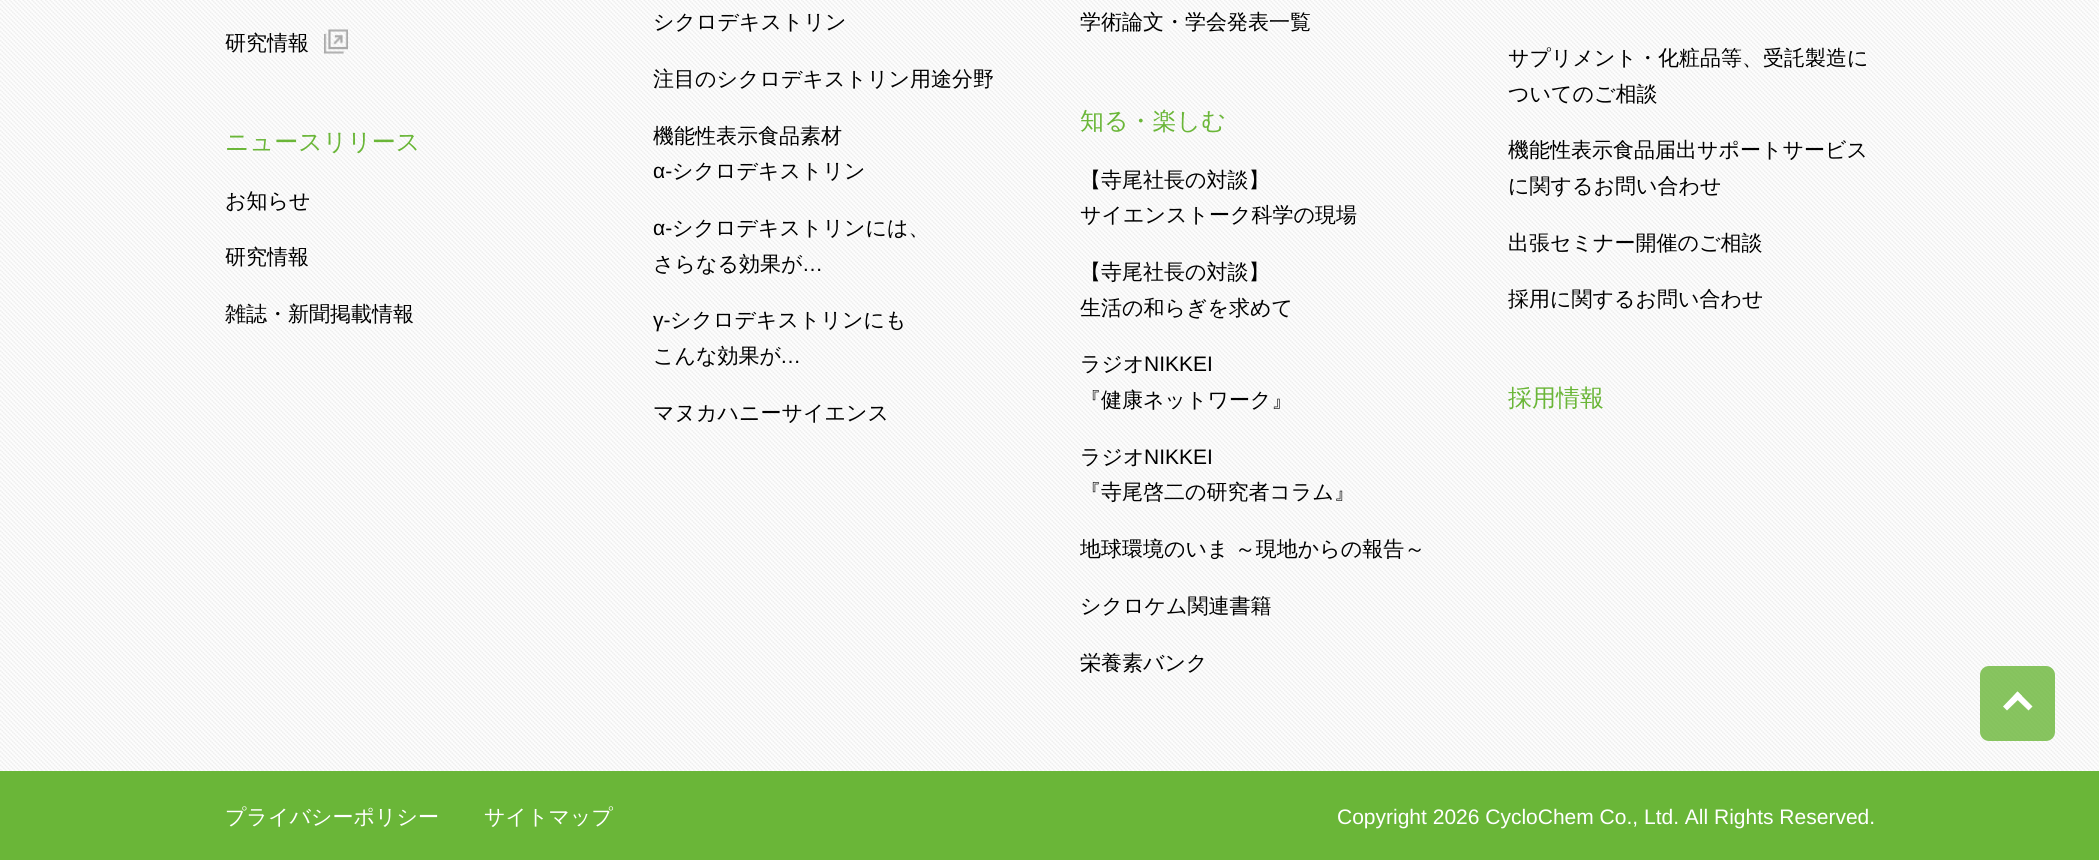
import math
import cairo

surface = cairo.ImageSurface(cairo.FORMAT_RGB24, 2099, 860)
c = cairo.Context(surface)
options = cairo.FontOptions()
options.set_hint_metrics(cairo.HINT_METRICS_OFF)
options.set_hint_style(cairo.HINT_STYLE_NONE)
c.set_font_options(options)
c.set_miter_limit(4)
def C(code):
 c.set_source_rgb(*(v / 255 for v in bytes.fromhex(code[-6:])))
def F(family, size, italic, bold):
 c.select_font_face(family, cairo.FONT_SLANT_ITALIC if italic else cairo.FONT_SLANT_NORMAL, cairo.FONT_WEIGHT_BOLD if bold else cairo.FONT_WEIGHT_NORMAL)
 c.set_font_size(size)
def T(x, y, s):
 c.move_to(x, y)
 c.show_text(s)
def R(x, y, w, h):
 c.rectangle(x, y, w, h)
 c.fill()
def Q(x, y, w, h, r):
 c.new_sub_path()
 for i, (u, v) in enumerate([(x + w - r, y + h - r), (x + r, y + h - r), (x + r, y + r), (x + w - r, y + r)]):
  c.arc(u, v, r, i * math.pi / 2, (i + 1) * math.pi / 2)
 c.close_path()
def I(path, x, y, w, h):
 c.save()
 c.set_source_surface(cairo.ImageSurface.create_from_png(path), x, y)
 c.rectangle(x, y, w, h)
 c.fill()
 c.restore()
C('ffffff')
c.paint()
I('1.png',0,0,2099,771)
F('WenQuanYi Zen Hei Medium',21,0,0)
C('000000')
T(225,50,'研究情報')
I('2.png',324,29,24,25)
F('WenQuanYi Zen Hei Medium',24,0,0)
C('6ab638')
T(225,150,'ニュースリリース')
F('WenQuanYi Zen Hei Medium',21,0,0)
C('000000')
T(225,208,'お知らせ')
T(225,264,'研究情報')
T(225,321,'雑誌・新聞掲載情報')
T(653,29,'シクロデキストリン')
T(653,86,'注目のシクロデキストリン用途分野')
T(653,143,'機能性表示食品素材')
F('Liberation Sans',21,0,0)
T(653,178,'α-')
F('WenQuanYi Zen Hei Medium',21,0,0)
T(672,178,'シクロデキストリン')
F('Liberation Sans',21,0,0)
T(653,235,'α-')
F('WenQuanYi Zen Hei Medium',21,0,0)
T(672,235,'シクロデキストリンには、')
T(653,271,'さらなる効果が')
F('Liberation Sans',21,0,0)
T(802,271,'…')
T(653,327,'γ-')
F('WenQuanYi Zen Hei Medium',21,0,0)
T(670,327,'シクロデキストリンにも')
T(653,363,'こんな効果が')
F('Liberation Sans',21,0,0)
T(780,363,'…')
F('WenQuanYi Zen Hei Medium',21,0,0)
T(653,420,'マヌカハニーサイエンス')
T(1080,29,'学術論文・学会発表一覧')
F('WenQuanYi Zen Hei Medium',24,0,0)
C('6ab638')
T(1080,129,'知る・楽しむ')
F('WenQuanYi Zen Hei Medium',21,0,0)
C('000000')
T(1080,187,'【寺尾社長の対談】')
T(1080,222,'サイエンストーク科学の現場')
T(1080,279,'【寺尾社長の対談】')
T(1080,315,'生活の和らぎを求めて')
T(1080,371,'ラジオ')
F('Liberation Sans',21,0,0)
T(1144,371,'NIKKEI')
F('WenQuanYi Zen Hei Medium',21,0,0)
T(1080,407,'『健康ネットワーク』')
T(1080,464,'ラジオ')
F('Liberation Sans',21,0,0)
T(1144,464,'NIKKEI')
F('WenQuanYi Zen Hei Medium',21,0,0)
T(1080,499,'『寺尾啓二の研究者コラム』')
T(1080,556,'地球環境のいま ～現地からの報告～')
T(1080,613,'シクロケム関連書籍')
T(1080,670,'栄養素バンク')
T(1508,65,'サプリメント・化粧品等、受託製造に')
T(1508,101,'ついてのご相談')
T(1508,157,'機能性表示食品届出サポートサービス')
T(1508,193,'に関するお問い合わせ')
T(1508,250,'出張セミナー開催のご相談')
T(1508,306,'採用に関するお問い合わせ')
F('WenQuanYi Zen Hei Medium',24,0,0)
C('6ab638')
T(1508,406,'採用情報')
R(0,771,2099,89)
F('WenQuanYi Zen Hei Medium',21,0,0)
C('ffffff')
T(225,824,'プライバシーポリシー')
T(484,824,'サイトマップ')
F('Liberation Sans',21,0,0)
T(1337,824,'Copyright 2026 CycloChem Co., Ltd. All Rights Reserved.')
c.set_source_rgba(0.416,0.714,0.22,0.8)
Q(1980,666,75,75,9)
c.fill()
C('ffffff')
c.new_path()
c.move_to(2003,706.5)
c.line_to(2017.5,691.5)
c.line_to(2022,696)
c.line_to(2007,710.5)
c.close_path()
c.fill()
c.new_path()
c.move_to(2013.5,696)
c.line_to(2017.5,691.5)
c.line_to(2032.5,706.5)
c.line_to(2028.5,710.5)
c.close_path()
c.fill()
surface.write_to_png('o.png')
